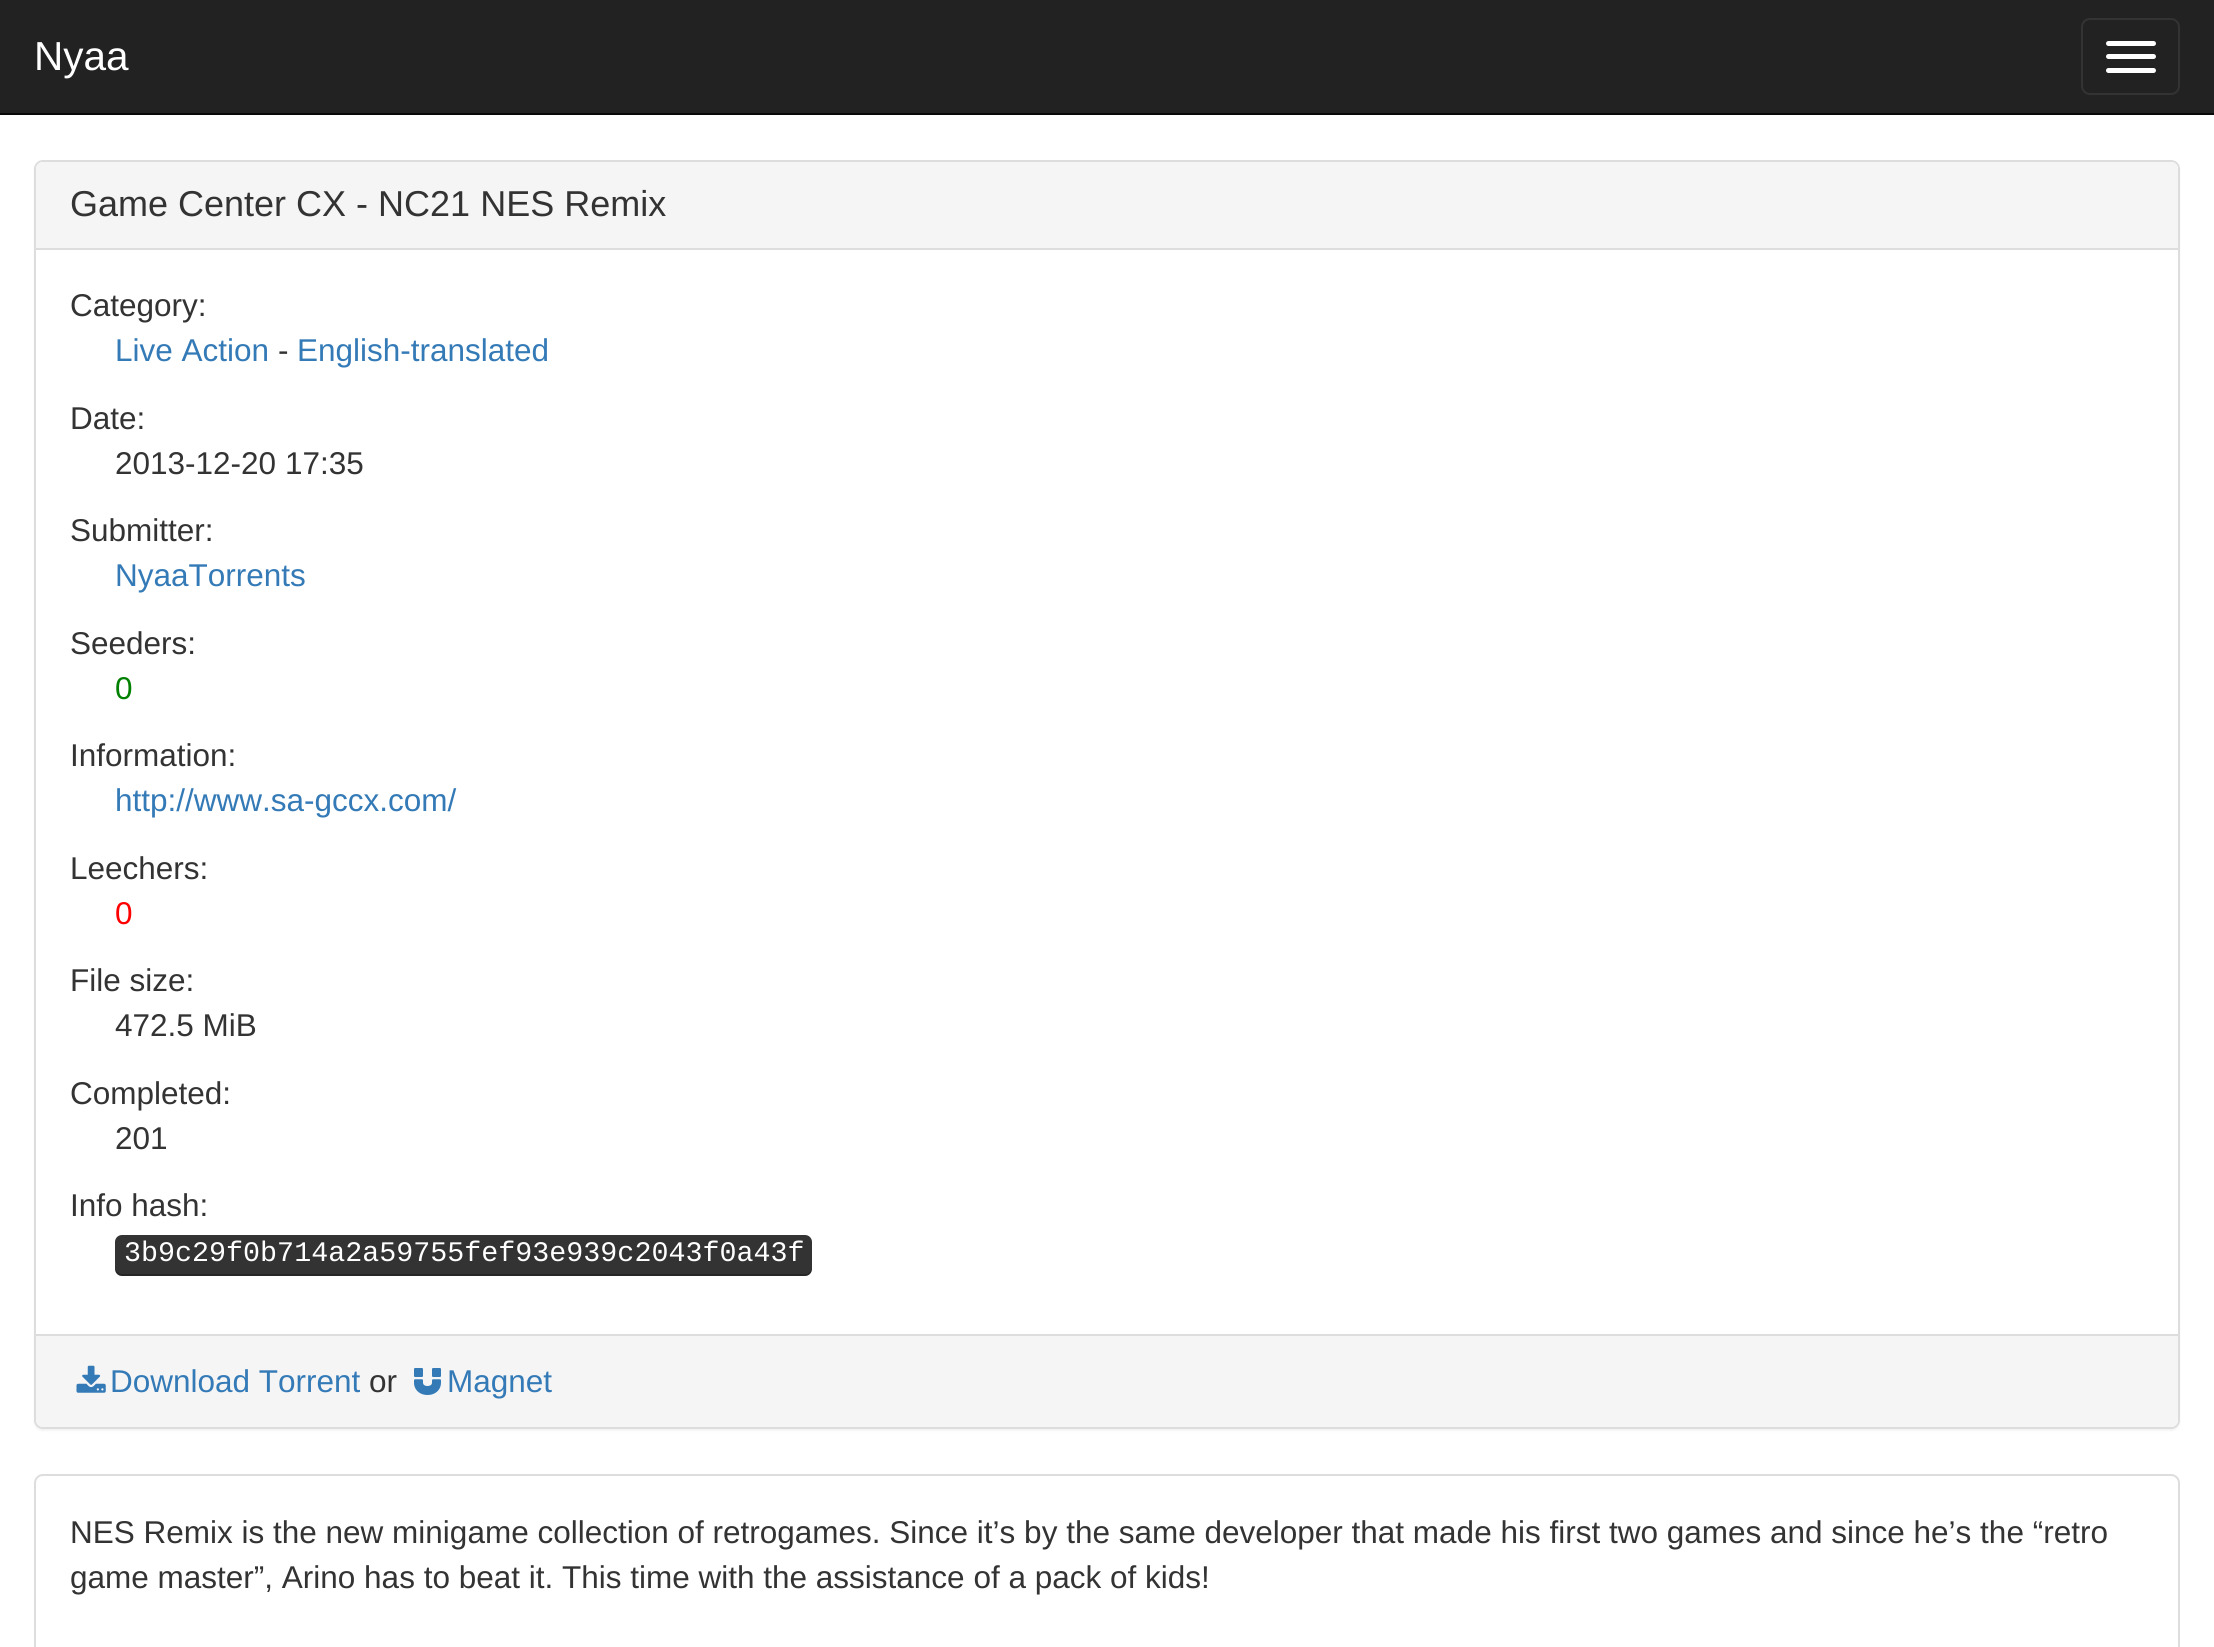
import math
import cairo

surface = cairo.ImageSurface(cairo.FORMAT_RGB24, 2214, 1647)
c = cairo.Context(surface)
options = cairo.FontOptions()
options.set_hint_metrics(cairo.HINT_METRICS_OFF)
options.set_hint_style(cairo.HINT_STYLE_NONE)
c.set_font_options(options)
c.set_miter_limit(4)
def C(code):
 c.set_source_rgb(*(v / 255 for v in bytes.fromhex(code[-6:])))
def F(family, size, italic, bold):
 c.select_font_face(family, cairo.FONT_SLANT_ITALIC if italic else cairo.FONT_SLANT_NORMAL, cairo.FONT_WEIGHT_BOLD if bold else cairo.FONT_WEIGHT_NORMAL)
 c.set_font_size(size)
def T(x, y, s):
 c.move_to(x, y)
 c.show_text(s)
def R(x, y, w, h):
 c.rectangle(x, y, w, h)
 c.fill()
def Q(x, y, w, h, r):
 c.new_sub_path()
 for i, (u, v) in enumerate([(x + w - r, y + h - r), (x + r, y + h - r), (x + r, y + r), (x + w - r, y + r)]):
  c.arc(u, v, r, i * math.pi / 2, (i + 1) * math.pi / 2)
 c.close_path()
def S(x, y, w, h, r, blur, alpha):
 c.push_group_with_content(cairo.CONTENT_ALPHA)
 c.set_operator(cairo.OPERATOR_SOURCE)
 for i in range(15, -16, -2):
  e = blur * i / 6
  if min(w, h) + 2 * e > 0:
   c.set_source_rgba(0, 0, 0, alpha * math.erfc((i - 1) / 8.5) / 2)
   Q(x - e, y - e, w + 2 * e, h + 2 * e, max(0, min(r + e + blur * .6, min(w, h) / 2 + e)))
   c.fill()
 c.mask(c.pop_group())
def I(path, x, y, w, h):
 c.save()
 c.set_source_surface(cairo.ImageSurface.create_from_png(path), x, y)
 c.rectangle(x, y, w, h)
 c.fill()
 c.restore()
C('ffffff')
c.paint()
C('222222')
R(0,0,2214,113)
C('080808')
R(0,113,2214,2)
F('Liberation Sans',40.5,0,0)
C('ffffff')
T(34,70,'Nyaa')
Q(2082,19,97,75,8)
C('333333')
c.stroke()
C('ffffff')
Q(2106,41,50,5,2.5)
c.fill()
Q(2106,54,50,5,2.5)
c.fill()
Q(2106,68,50,5,2.5)
c.fill()
C('000000')
S(34,162,2146,1269,9,1,.05)
C('ffffff')
Q(35,161,2144,1267,8)
c.fill_preserve()
C('dddddd')
c.stroke()
C('f5f5f5')
c.new_path()
c.move_to(43,162)
c.line_to(2171,162)
c.curve_to(2175,162,2178,165,2178,169)
c.line_to(2178,250)
c.line_to(36,250)
c.line_to(36,169)
c.curve_to(36,165,39,162,43,162)
c.close_path()
c.fill()
C('dddddd')
R(36,248,2142,2)
F('Liberation Sans',36,0,0)
C('333333')
T(70,216,'Game Center CX - NC21 NES Remix')
F('Liberation Sans',31.5,0,0)
T(70,316,'Category:')
C('337ab7')
T(115,361,'Live Action')
C('333333')
T(278,361,'-')
C('337ab7')
T(297,361,'English-translated')
C('333333')
T(70,429,'Date:')
T(115,474,'2013-12-20 17:35')
T(70,541,'Submitter:')
C('337ab7')
T(115,586,'NyaaTorrents')
C('333333')
T(70,654,'Seeders:')
C('008000')
T(115,699,'0')
C('333333')
T(70,766,'Information:')
C('337ab7')
T(115,811,'http://www.sa-gccx.com/')
C('333333')
T(70,879,'Leechers:')
C('ff0000')
T(115,924,'0')
C('333333')
T(70,991,'File size:')
T(115,1036,'472.5 MiB')
T(70,1104,'Completed:')
T(115,1149,'201')
T(70,1216,'Info hash:')
Q(115,1235,697,41,7)
c.fill()
F('Liberation Mono',28.35,0,0)
C('ffffff')
T(124,1261,'3b9c29f0b714a2a59755fef93e939c2043f0a43f')
c.set_source_rgba(0,0,0,0.25)
c.new_path()
c.move_to(115,1267)
c.curve_to(115,1271,117,1276,122,1276)
c.line_to(805,1276)
c.curve_to(810,1276,812,1271,812,1267)
c.curve_to(812,1270,809,1274,806,1274)
c.line_to(122,1274)
c.curve_to(118,1274,115,1270,115,1267)
c.close_path()
c.fill()
C('f5f5f5')
c.new_path()
c.move_to(36,1334)
c.line_to(2178,1334)
c.line_to(2178,1420)
c.curve_to(2178,1424,2175,1427,2171,1427)
c.line_to(43,1427)
c.curve_to(39,1427,36,1424,36,1420)
c.close_path()
c.fill()
C('dddddd')
R(36,1334,2142,2)
I('1.png',76,1365,30,28)
F('Liberation Sans',31.5,0,0)
C('337ab7')
T(110,1392,'Download Torrent')
C('333333')
T(369,1392,'or')
I('2.png',414,1368,27,27)
C('337ab7')
T(447,1392,'Magnet')
Q(35,1475,2144,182,8)
C('dddddd')
c.stroke()
C('333333')
T(70,1543,'NES Remix is the new minigame collection of retrogames. Since it’s by the same developer that made his first two games and since he’s the “retro')
T(70,1588,'game master”, Arino has to beat it. This time with the assistance of a pack of kids!')
surface.write_to_png('o.png')
